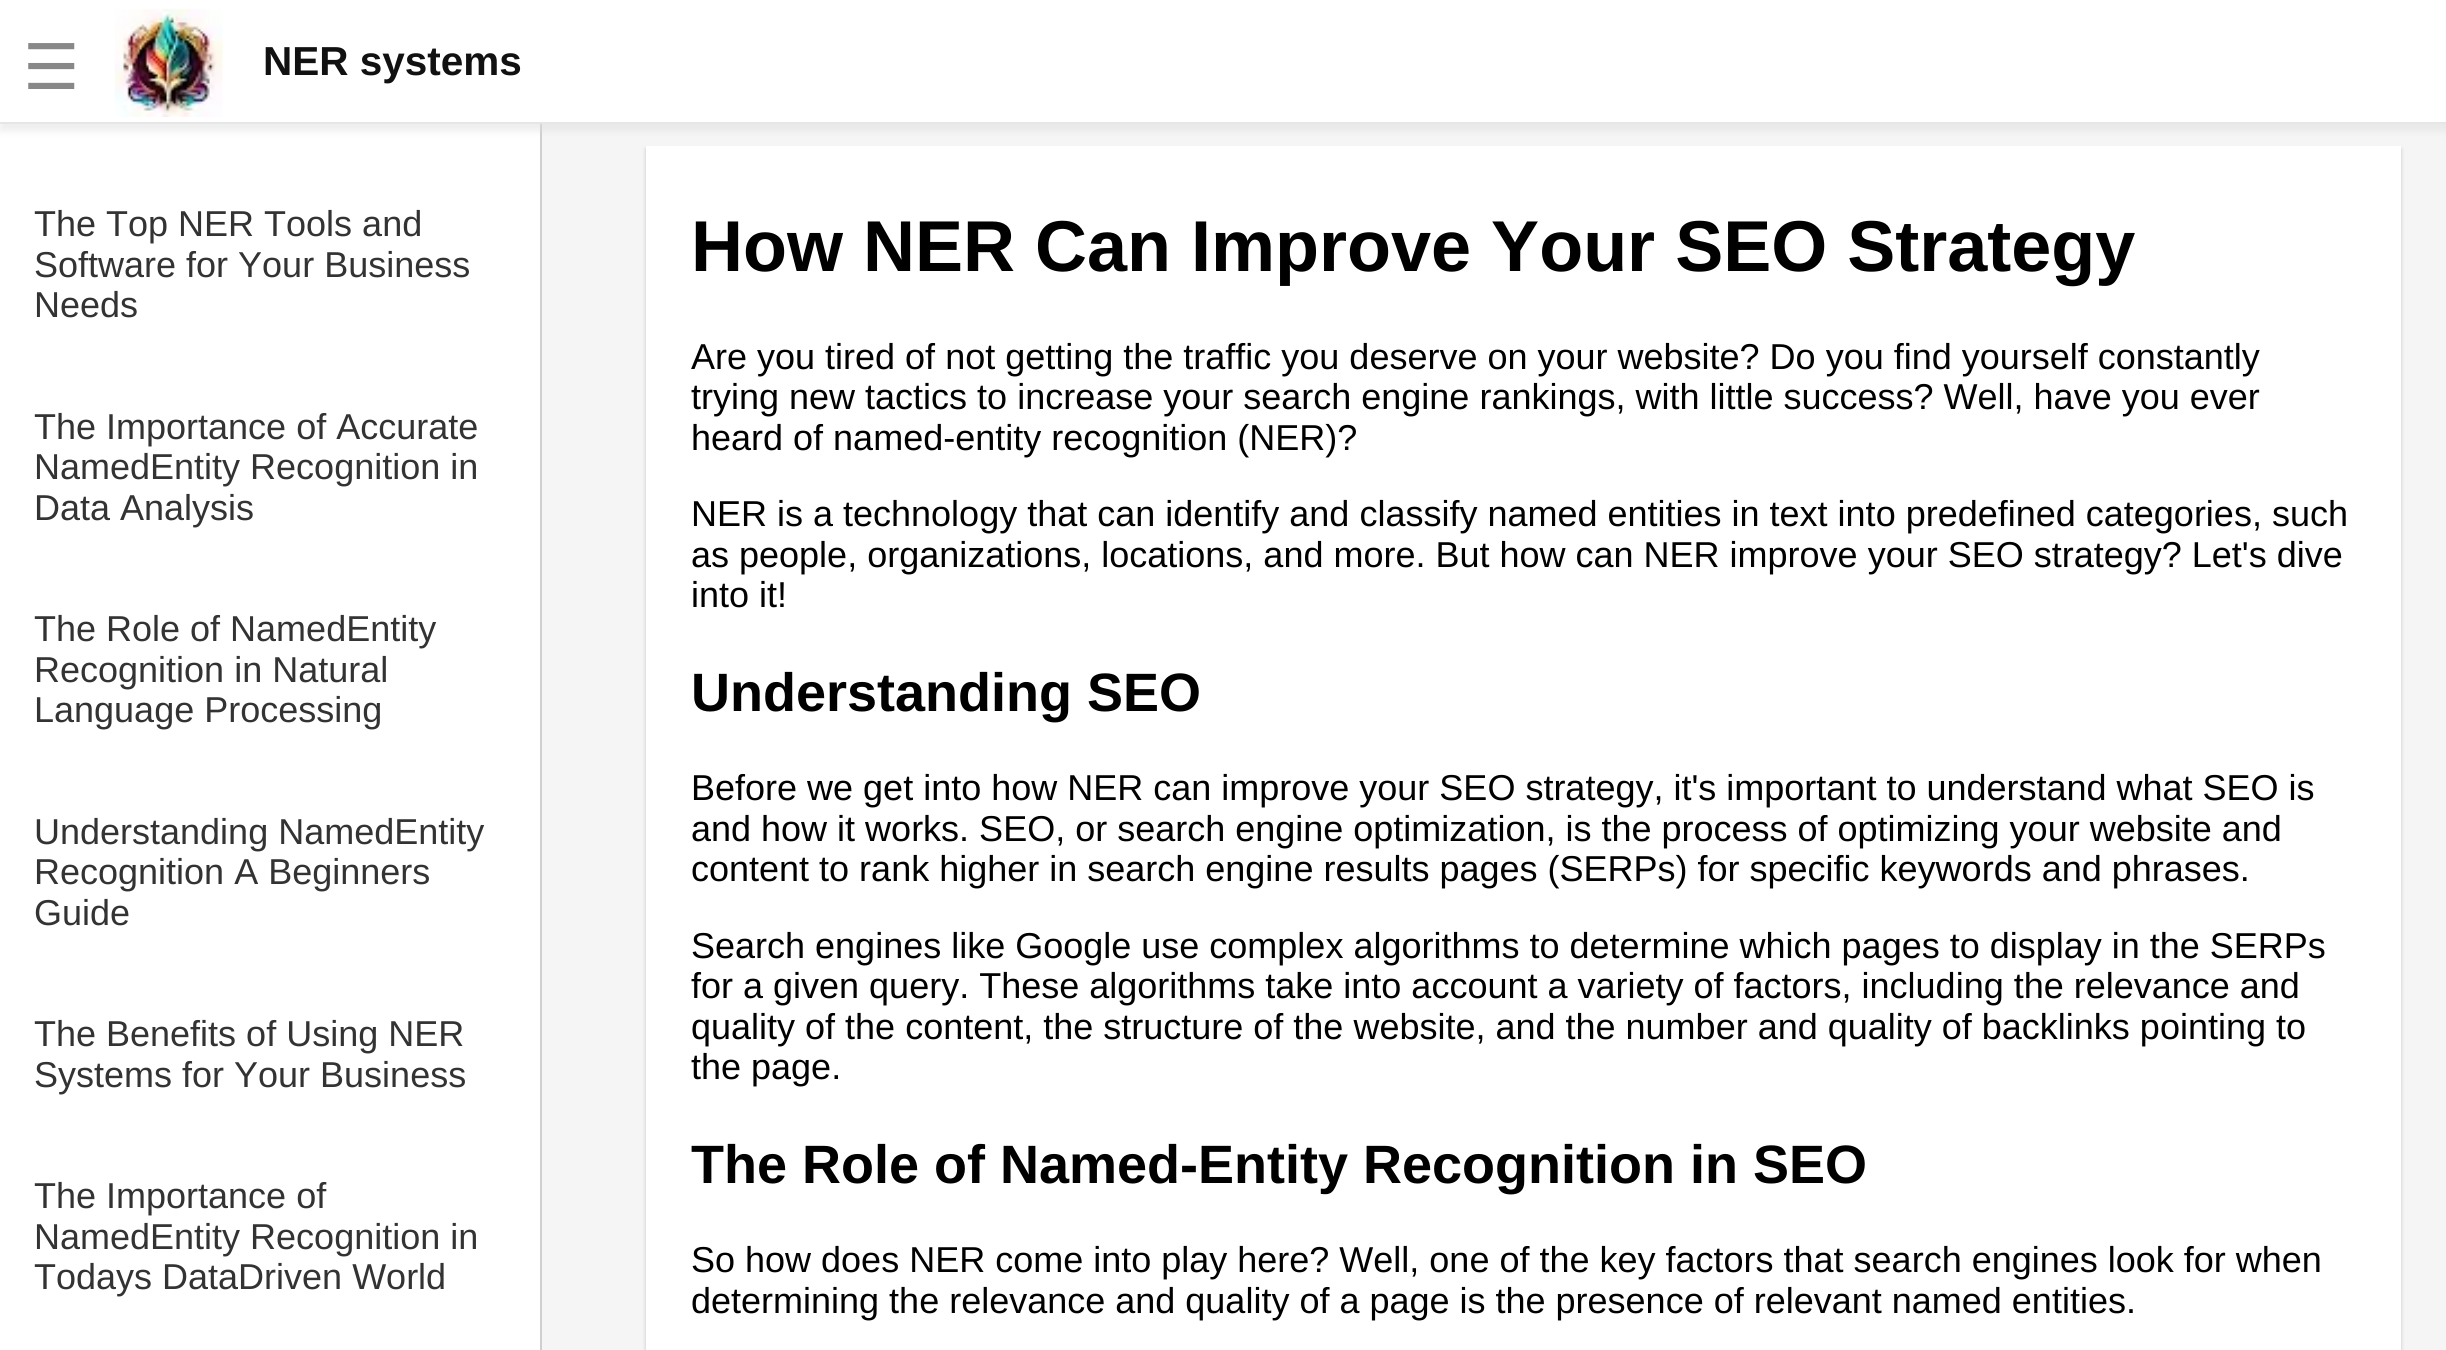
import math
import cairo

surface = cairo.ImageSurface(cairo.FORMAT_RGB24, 2446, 1350)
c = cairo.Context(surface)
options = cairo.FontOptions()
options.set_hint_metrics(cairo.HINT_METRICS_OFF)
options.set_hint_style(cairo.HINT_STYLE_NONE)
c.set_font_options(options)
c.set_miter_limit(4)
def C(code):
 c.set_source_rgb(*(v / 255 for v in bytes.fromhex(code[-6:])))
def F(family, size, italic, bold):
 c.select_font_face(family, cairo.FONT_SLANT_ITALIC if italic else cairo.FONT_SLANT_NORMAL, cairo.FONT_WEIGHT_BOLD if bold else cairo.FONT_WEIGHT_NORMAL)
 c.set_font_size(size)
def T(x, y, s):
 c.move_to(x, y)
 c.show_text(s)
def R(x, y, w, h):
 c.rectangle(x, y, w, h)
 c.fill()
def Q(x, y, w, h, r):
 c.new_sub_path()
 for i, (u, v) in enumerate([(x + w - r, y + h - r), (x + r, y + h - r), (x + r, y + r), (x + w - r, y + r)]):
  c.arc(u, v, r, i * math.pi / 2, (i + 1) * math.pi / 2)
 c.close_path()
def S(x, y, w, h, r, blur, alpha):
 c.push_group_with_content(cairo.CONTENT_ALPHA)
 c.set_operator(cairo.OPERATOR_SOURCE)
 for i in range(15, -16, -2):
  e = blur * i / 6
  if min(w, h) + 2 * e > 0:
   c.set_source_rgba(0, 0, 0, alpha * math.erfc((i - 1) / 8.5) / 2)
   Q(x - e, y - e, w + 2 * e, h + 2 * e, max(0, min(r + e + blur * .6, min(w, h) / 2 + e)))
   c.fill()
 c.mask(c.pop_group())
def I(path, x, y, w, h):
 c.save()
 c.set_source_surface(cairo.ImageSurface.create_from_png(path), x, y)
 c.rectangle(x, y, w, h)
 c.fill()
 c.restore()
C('f5f5f5')
c.paint()
C('ffffff')
R(0,124,540,1226)
C('cfcfcf')
R(540,124,2,1226)
C('dcdcdc')
S(0,7,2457,124,0,3.5,.5)
C('ffffff')
R(0,0,2446,122)
C('e6e6e6')
R(0,122,2446,2)
F('DejaVu Sans',63,0,0)
C('888888')
T(23,89,'☰')
I('1.png',114,8,109,109)
F('Liberation Sans',40.5,0,1)
C('111111')
T(263,75,'NER systems')
F('Liberation Sans',36,0,0)
C('333333')
T(34,236,'The Top NER Tools and')
T(34,277,'Software for Your Business')
T(34,317,'Needs')
T(34,439,'The Importance of Accurate')
T(34,479,'NamedEntity Recognition in')
T(34,520,'Data Analysis')
T(34,641,'The Role of NamedEntity')
T(34,682,'Recognition in Natural')
T(34,722,'Language Processing')
T(34,844,'Understanding NamedEntity')
T(34,884,'Recognition A Beginners')
T(34,925,'Guide')
T(34,1046,'The Benefits of Using NER')
T(34,1087,'Systems for Your Business')
T(34,1208,'The Importance of')
T(34,1249,'NamedEntity Recognition in')
T(34,1289,'Todays DataDriven World')
C('000000')
S(646,149,1755,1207,0,2,.2)
C('ffffff')
R(646,146,1755,1204)
F('Liberation Sans',72,0,1)
C('000000')
T(691,271,'How NER Can Improve Your SEO Strategy')
F('Liberation Sans',36,0,0)
T(691,369,'Are you tired of not getting the traffic you deserve on your website? Do you find yourself constantly')
T(691,409,'trying new tactics to increase your search engine rankings, with little success? Well, have you ever')
T(691,450,'heard of named-entity recognition (NER)?')
T(691,526,'NER is a technology that can identify and classify named entities in text into predefined categories, such')
T(691,567,'as people, organizations, locations, and more. But how can NER improve your SEO strategy? Let\'s dive')
T(691,607,'into it!')
F('Liberation Sans',54,0,1)
T(691,711,'Understanding SEO')
F('Liberation Sans',36,0,0)
T(691,800,'Before we get into how NER can improve your SEO strategy, it\'s important to understand what SEO is')
T(691,841,'and how it works. SEO, or search engine optimization, is the process of optimizing your website and')
T(691,881,'content to rank higher in search engine results pages (SERPs) for specific keywords and phrases.')
T(691,958,'Search engines like Google use complex algorithms to determine which pages to display in the SERPs')
T(691,998,'for a given query. These algorithms take into account a variety of factors, including the relevance and')
T(691,1039,'quality of the content, the structure of the website, and the number and quality of backlinks pointing to')
T(691,1079,'the page.')
F('Liberation Sans',54,0,1)
T(691,1183,'The Role of Named-Entity Recognition in SEO')
F('Liberation Sans',36,0,0)
T(691,1272,'So how does NER come into play here? Well, one of the key factors that search engines look for when')
T(691,1313,'determining the relevance and quality of a page is the presence of relevant named entities.')
surface.write_to_png('o.png')
